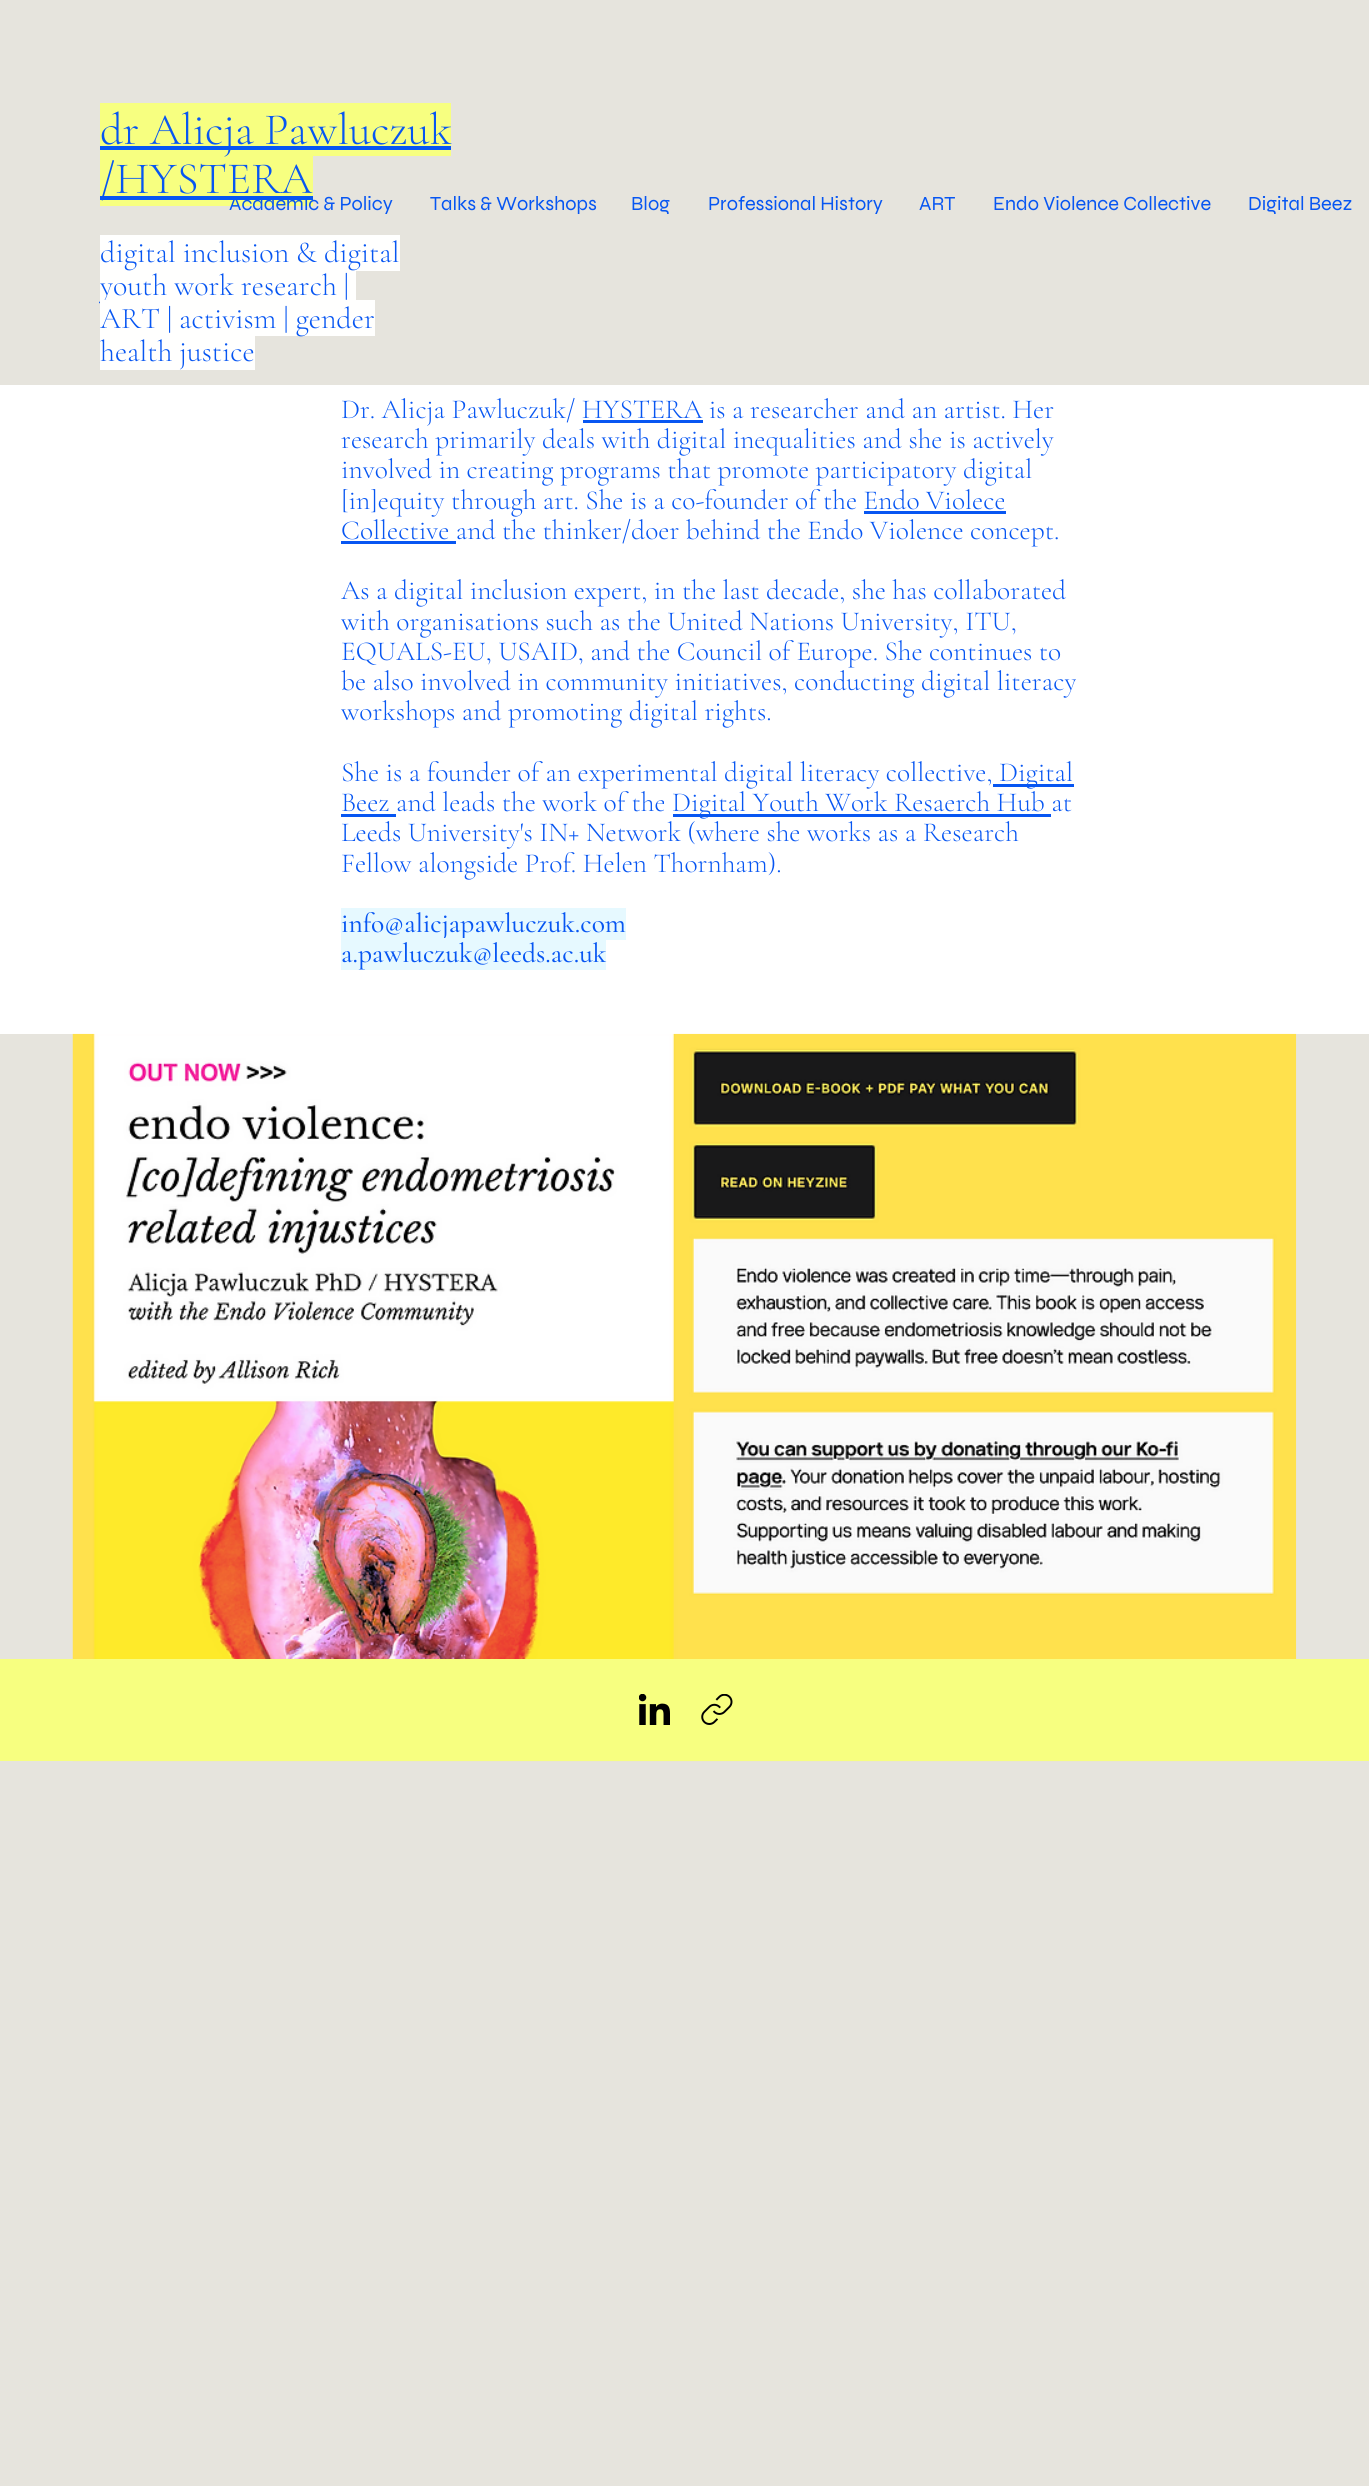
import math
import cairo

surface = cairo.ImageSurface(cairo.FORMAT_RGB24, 1369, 2486)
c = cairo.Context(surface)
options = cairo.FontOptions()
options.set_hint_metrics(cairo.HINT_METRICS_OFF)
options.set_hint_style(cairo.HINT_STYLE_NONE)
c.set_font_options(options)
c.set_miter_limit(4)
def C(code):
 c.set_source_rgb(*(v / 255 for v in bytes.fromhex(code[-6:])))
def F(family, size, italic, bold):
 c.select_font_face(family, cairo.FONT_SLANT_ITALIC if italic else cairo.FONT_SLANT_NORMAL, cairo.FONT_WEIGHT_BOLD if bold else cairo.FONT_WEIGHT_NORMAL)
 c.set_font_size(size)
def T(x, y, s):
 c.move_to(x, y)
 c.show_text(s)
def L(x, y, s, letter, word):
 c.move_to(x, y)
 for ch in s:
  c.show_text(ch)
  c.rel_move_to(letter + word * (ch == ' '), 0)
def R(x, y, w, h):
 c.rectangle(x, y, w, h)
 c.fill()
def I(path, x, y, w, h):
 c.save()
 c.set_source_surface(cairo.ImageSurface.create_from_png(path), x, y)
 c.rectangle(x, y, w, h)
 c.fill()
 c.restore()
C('e6e4dd')
c.paint()
C('f7ff80')
R(100,103,351,53)
C('0756f2')
R(100,146,351,4)
C('f7ff80')
R(100,156,213,50)
F('Cormorant Garamond Light',45,0,0)
C('0756f2')
T(100,144,'dr Alicja Pawluczuk')
R(100,196,213,4)
T(100,193,'/HYSTERA')
C('fffffe')
R(100,235,300,36)
F('Cormorant Garamond Light',30,0,0)
C('0756f2')
T(100,262,'digital inclusion & digital')
C('fffffe')
R(100,271,256,29)
C('0756f2')
T(100,295,'youth work research |')
C('fffffe')
R(100,300,275,36)
R(100,336,155,34)
C('0756f2')
T(100,328,'ART | activism | gender')
T(100,361,'health justice')
F('Syne',20,0,0)
T(229,210,'Academic & Policy')
T(430,210,'Talks & Workshops')
T(631,210,'Blog')
T(708,210,'Professional History')
T(919,210,'ART')
T(993,210,'Endo Violence Collective')
T(1248,210,'Digital Beez')
C('ffffff')
R(0,385,1369,649)
F('Cormorant Garamond Light',27.5,0,0)
C('0756f2')
T(341,418,'Dr. Alicja Pawluczuk/ HYSTERA is a researcher and an artist. Her')
R(583,420,120,3)
T(341,448,'research primarily deals with digital inequalities and she is actively')
T(341,478,'involved in creating programs that promote participatory digital')
T(341,509,'[in]equity through art. She is a co-founder of the Endo Violece')
R(864,511,142,3)
R(341,541,115,3)
T(341,539,'Collective and the thinker/doer behind the Endo Violence concept.')
T(341,599,'As a digital inclusion expert, in the last decade, she has collaborated')
T(341,630,'with organisations such as the United Nations University, ITU,')
L(341,660,'EQUALS-EU, USAID, and the Council of Europe. She continues to',0,-.1)
T(341,690,'be also involved in community initiatives, conducting digital literacy')
T(341,720,'workshops and promoting digital rights.')
T(341,781,'She is a founder of an experimental digital literacy collective,')
R(993,784,81,3)
T(999,781,'Digital')
T(341,811,'Beez and leads the work of the')
R(341,814,55,3)
R(673,814,378,3)
T(672,811,'Digital Youth Work Resaerch Hub at')
T(341,841,'Leeds University\'s IN+ Network (where she works as a Research')
T(341,872,'Fellow alongside Prof. Helen Thornham).')
C('e6f9ff')
R(341,908,285,32)
F('Cormorant Garamond Medium',27.5,0,0)
C('0756f2')
T(341,932,'info@alicjapawluczuk.com')
C('e6f9ff')
R(341,938,265,32)
C('0756f2')
T(341,962,'a.pawluczuk@leeds.ac.uk')
I('1.png',72,1033,1225,729)
C('f7ff80')
R(0,1659,1369,102)
I('2.png',639,1694,31,31)
I('3.png',701,1694,32,31)
surface.write_to_png('o.png')
